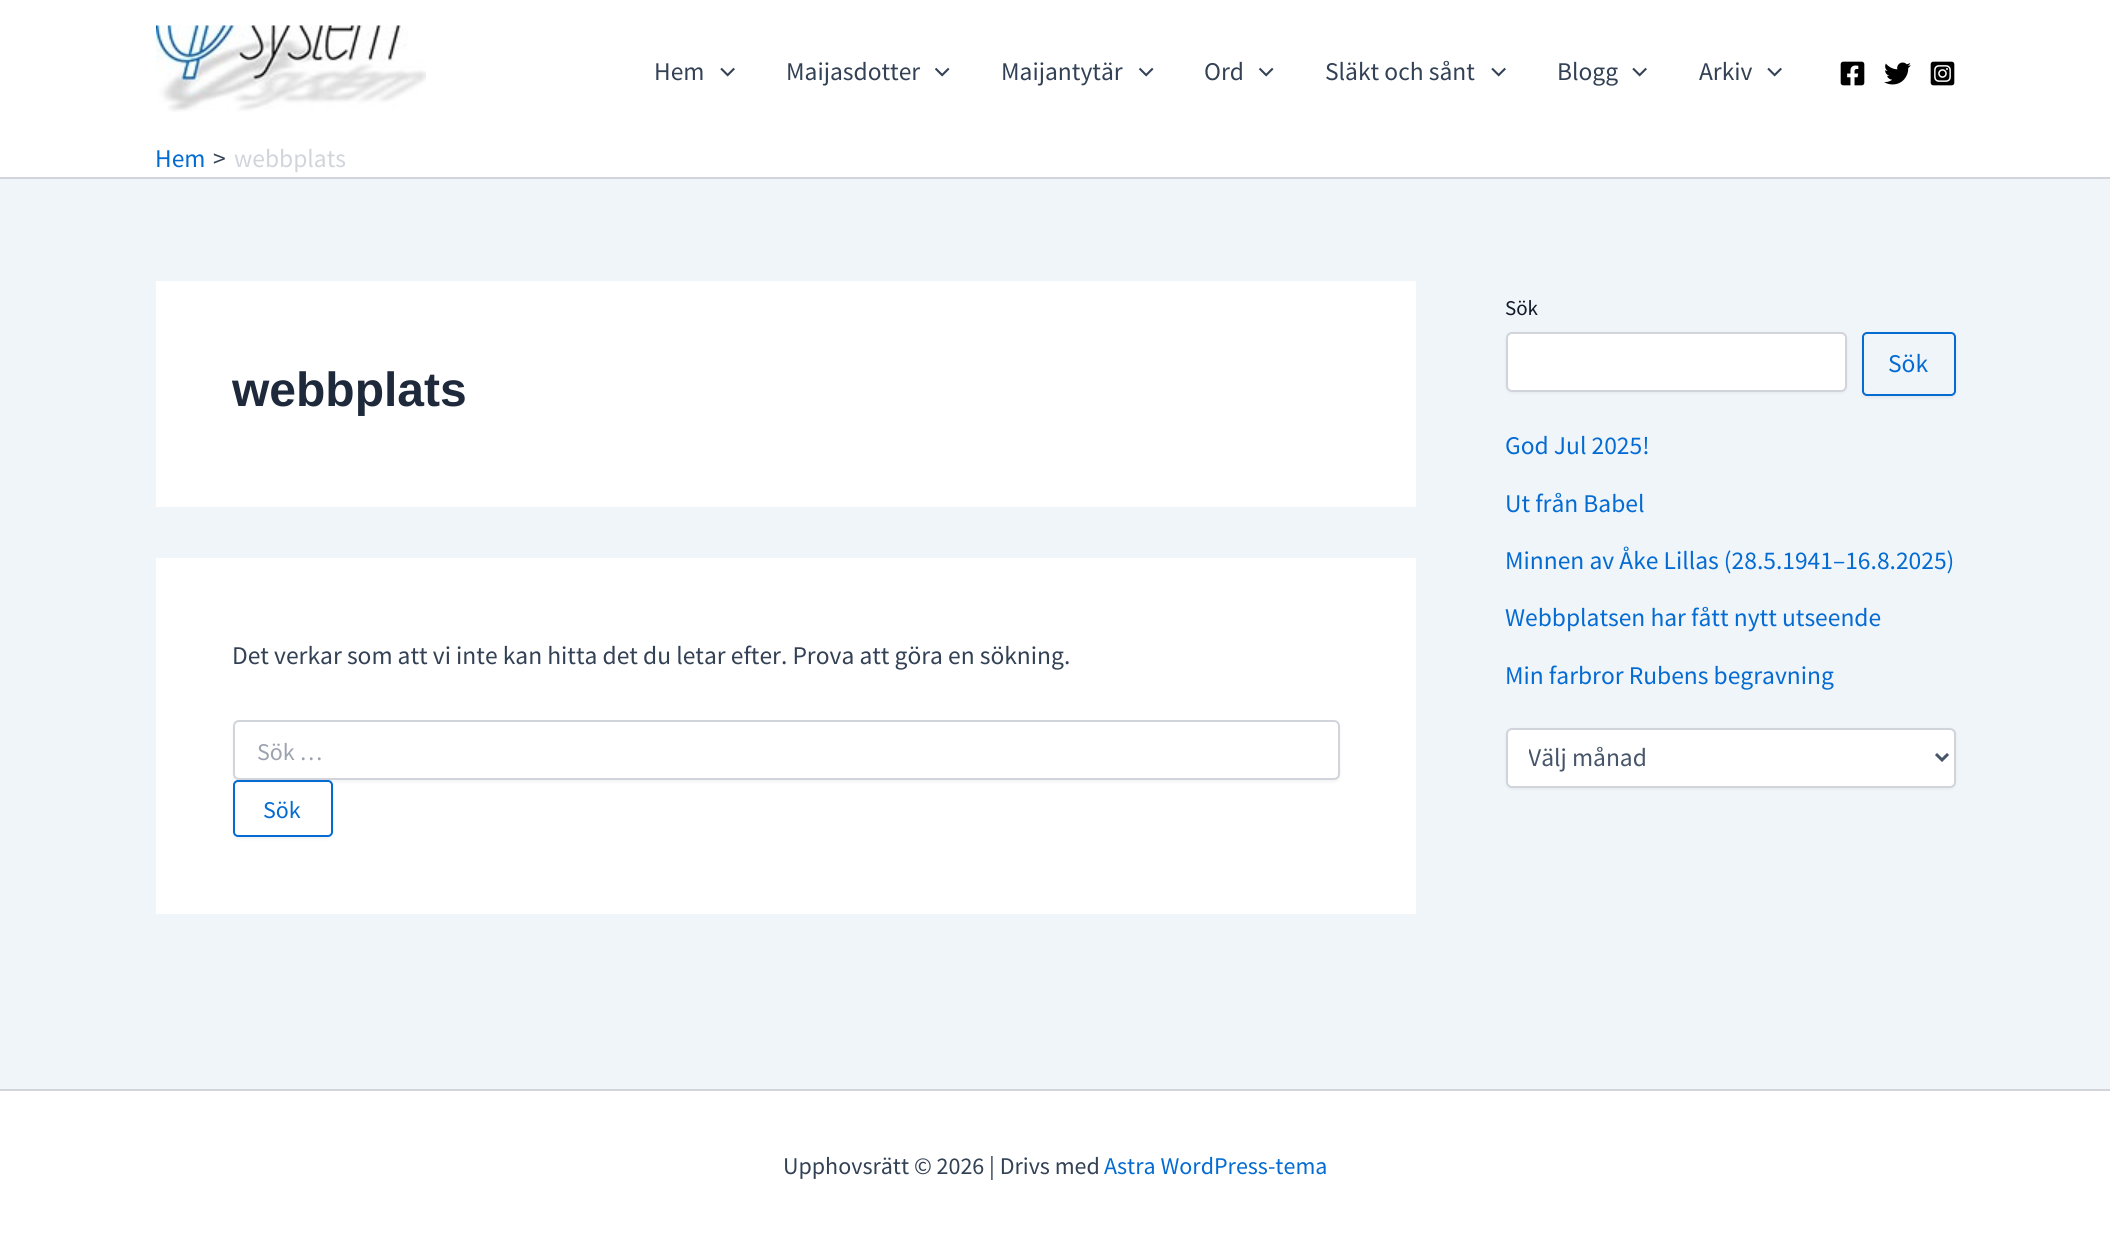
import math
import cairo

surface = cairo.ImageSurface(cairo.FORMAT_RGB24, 2110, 1240)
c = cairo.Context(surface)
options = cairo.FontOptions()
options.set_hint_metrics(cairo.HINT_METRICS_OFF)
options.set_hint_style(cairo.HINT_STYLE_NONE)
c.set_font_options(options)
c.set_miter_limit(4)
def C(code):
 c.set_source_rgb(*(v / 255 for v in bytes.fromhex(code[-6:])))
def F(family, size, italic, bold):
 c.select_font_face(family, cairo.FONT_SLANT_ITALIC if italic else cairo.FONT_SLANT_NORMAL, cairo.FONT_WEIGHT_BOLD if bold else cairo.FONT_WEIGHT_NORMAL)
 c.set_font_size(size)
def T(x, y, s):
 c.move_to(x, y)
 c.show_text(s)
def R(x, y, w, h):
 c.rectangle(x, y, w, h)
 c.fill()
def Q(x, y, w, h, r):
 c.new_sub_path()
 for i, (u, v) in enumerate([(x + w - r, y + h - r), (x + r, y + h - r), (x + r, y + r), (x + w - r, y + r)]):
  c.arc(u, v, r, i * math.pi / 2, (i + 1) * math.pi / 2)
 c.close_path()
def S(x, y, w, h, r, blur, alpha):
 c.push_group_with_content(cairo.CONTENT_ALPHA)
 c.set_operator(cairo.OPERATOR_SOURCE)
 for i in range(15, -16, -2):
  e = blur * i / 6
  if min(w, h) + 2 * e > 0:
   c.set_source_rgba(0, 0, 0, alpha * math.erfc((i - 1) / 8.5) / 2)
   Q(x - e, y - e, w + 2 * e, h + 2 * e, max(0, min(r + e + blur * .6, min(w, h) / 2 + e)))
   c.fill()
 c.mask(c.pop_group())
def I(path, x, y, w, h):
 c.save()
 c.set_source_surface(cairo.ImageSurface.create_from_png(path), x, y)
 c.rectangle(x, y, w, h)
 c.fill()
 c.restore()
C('f0f5fa')
c.paint()
C('ffffff')
R(0,0,2110,177)
C('d1d5db')
R(0,177,2110,2)
I('1.png',156,25,270,87)
F('Source Sans Pro',25.5,0,0)
C('334155')
T(654,80,'Hem')
I('2.png',720,67,15,10)
T(786,80,'Maijasdotter')
I('3.png',935,67,15,10)
T(1001,80,'Maijantytär')
I('3.png',1139,67,15,10)
T(1204,80,'Ord')
I('3.png',1259,67,15,10)
T(1325,80,'Släkt och sånt')
I('2.png',1491,67,15,10)
T(1557,80,'Blogg')
I('2.png',1632,67,15,10)
T(1699,80,'Arkiv')
I('2.png',1767,67,15,10)
I('4.png',1840,61,25,25)
I('5.png',1884,62,27,23)
I('6.png',1930,61,25,25)
C('046bd2')
T(155,167,'Hem')
C('334155')
T(213,167,'>')
C('d1d5db')
T(234,167,'webbplats')
C('ffffff')
R(156,281,1260,226)
F('Liberation Sans',48,0,1)
C('1e293b')
T(232,406,'webbplats')
C('ffffff')
R(156,558,1260,356)
F('Source Sans Pro',25.5,0,0)
C('334155')
T(232,664,'Det verkar som att vi inte kan hitta det du letar efter. Prova att göra en sökning.')
C('000000')
S(233,722,1107,60,6,1.5,.05)
C('ffffff')
Q(234,721,1105,58,5)
c.fill_preserve()
C('d1d5db')
c.stroke()
F('Source Sans Pro',24,0,0)
C('9ca3af')
T(257,760,'Sök …')
c.save()
c.set_fill_rule(cairo.FILL_RULE_EVEN_ODD)
c.new_path()
c.move_to(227,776)
c.line_to(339,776)
c.line_to(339,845)
c.line_to(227,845)
c.close_path()
c.move_to(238,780)
c.line_to(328,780)
c.curve_to(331,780,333,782,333,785)
c.line_to(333,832)
c.curve_to(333,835,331,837,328,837)
c.line_to(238,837)
c.curve_to(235,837,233,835,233,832)
c.line_to(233,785)
c.curve_to(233,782,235,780,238,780)
c.close_path()
c.clip()
C('000000')
S(233,782,100,57,5,1.5,.05)
c.restore()
Q(234,781,98,55,4)
C('046bd2')
c.stroke()
T(263,818,'Sök')
F('Source Sans Pro',21,0,0)
C('111827')
T(1505,315,'Sök')
C('000000')
S(1506,333,341,60,6,1.5,.05)
C('ffffff')
Q(1507,333,339,58,5)
c.fill_preserve()
C('d1d5db')
c.stroke()
c.save()
c.set_fill_rule(cairo.FILL_RULE_EVEN_ODD)
c.new_path()
c.move_to(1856,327)
c.line_to(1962,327)
c.line_to(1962,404)
c.line_to(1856,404)
c.close_path()
c.move_to(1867,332)
c.line_to(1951,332)
c.curve_to(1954,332,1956,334,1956,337)
c.line_to(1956,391)
c.curve_to(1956,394,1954,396,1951,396)
c.line_to(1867,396)
c.curve_to(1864,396,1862,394,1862,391)
c.line_to(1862,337)
c.curve_to(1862,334,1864,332,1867,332)
c.close_path()
c.clip()
C('000000')
S(1862,333,94,65,5,1.5,.05)
c.restore()
Q(1863,333,92,62,4)
C('046bd2')
c.stroke()
F('Source Sans Pro',25.5,0,0)
T(1888,372,'Sök')
T(1505,454,'God Jul 2025!')
T(1505,512,'Ut från Babel')
T(1505,569,'Minnen av Åke Lillas (28.5.1941–16.8.2025)')
T(1505,626,'Webbplatsen har fått nytt utseende')
T(1505,684,'Min farbror Rubens begravning')
C('000000')
S(1506,729,450,60,6,1.5,.05)
C('ffffff')
Q(1507,729,448,58,5)
c.fill_preserve()
C('d1d5db')
c.stroke()
c.new_path()
c.move_to(1936,754)
c.line_to(1942,760)
c.line_to(1948,754)
C('475569')
c.set_line_width(3)
c.stroke()
c.save()
c.rectangle(1529,740,387,36)
c.clip()
T(1528,766,'Välj månad')
c.restore()
C('ffffff')
R(0,1091,2110,149)
C('d1d5db')
R(0,1089,2110,2)
F('Source Sans Pro',24,0,0)
C('334155')
T(783,1174,'Upphovsrätt © 2026 | Drivs med')
C('046bd2')
T(1104,1174,'Astra WordPress-tema')
surface.write_to_png('o.png')
